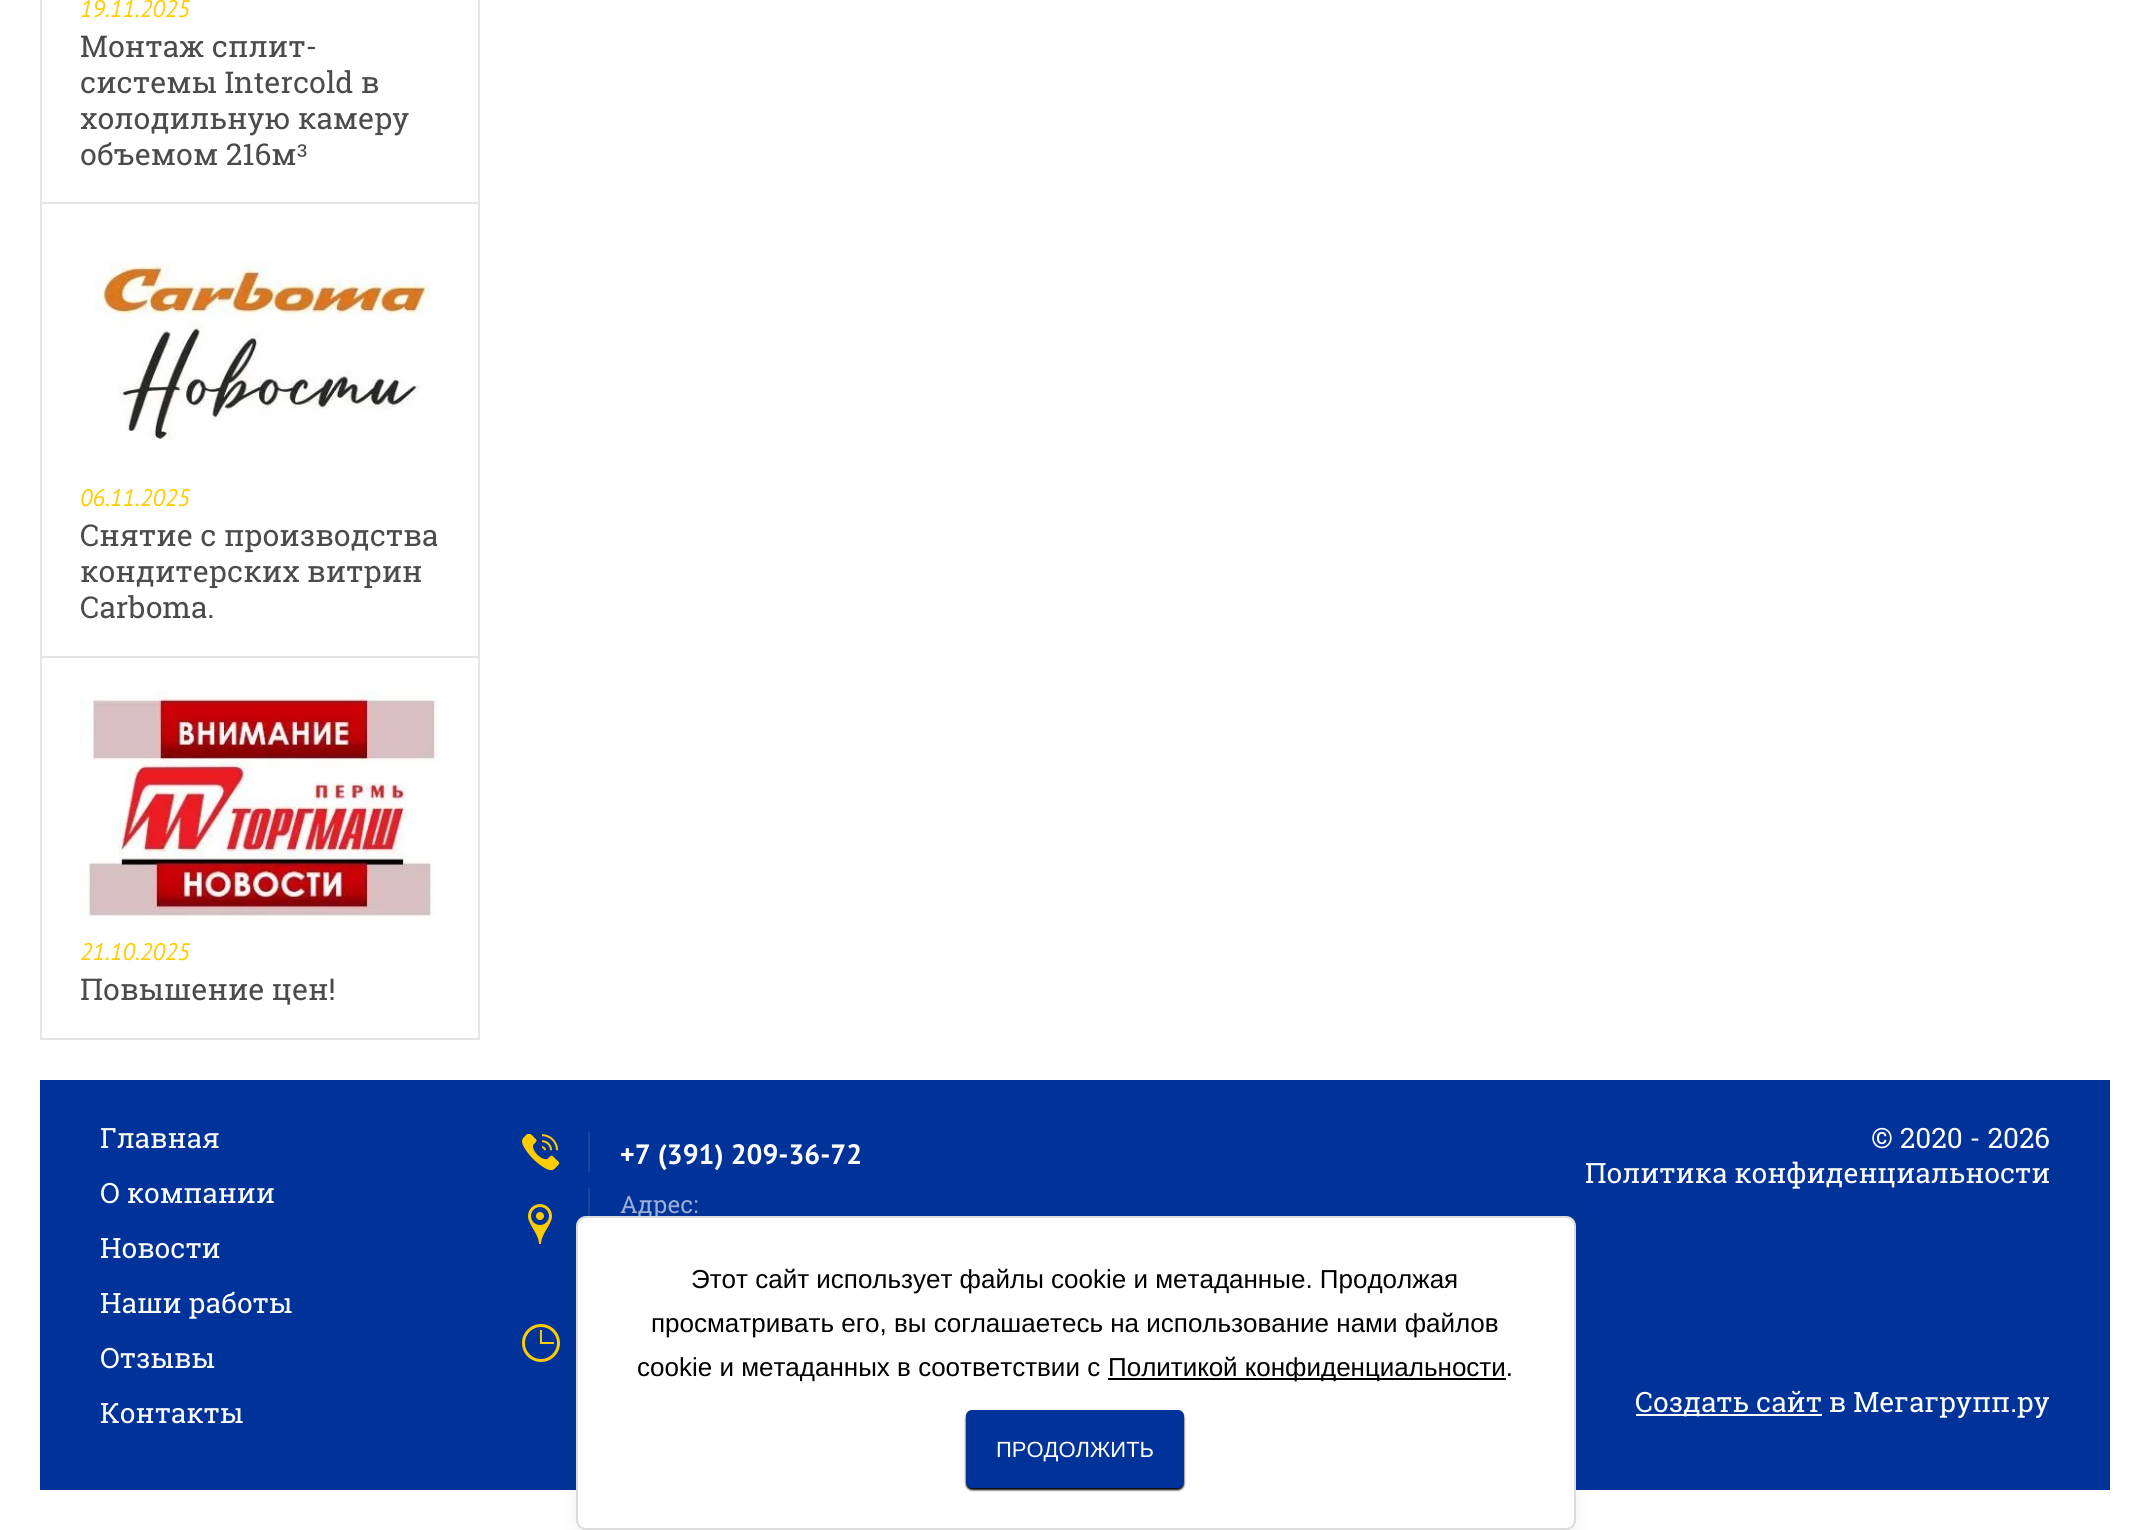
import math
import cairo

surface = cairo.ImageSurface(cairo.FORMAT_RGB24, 2150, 1530)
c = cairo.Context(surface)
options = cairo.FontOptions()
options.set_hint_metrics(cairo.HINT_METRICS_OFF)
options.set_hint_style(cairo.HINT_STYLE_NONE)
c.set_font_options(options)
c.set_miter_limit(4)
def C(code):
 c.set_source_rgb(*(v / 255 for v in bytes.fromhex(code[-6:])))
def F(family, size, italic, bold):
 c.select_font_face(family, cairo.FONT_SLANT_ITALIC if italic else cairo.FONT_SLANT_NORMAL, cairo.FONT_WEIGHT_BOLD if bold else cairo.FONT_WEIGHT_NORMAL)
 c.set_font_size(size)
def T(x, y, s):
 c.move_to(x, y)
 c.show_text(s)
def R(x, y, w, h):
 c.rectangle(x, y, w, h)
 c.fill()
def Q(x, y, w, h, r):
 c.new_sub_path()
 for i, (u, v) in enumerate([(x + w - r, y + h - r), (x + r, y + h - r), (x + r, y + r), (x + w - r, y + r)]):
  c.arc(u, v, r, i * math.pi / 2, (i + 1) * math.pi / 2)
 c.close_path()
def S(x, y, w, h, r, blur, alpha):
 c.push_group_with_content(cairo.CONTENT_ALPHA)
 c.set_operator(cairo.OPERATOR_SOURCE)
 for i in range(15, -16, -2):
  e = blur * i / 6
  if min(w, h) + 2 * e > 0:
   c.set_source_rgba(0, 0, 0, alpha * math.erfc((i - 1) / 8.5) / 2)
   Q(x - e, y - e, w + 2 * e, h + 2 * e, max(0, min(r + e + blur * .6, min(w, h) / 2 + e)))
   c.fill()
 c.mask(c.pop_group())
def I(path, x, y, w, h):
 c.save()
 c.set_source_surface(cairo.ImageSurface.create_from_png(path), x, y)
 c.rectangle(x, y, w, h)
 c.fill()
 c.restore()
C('ffffff')
c.paint()
c.rectangle(41,-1,438,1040)
C('e5e5e5')
c.stroke()
F('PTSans',24,1,0)
C('ffcc00')
T(80,17,'19.11.2025')
F('Roboto Slab',30,0,0)
C('4b4b4b')
T(80,57,'Монтаж сплит-')
T(80,93,'системы Intercold в')
T(80,129,'холодильную камеру')
T(80,165,'объемом 216м')
F('Liberation Sans',30,0,0)
T(297,165,'³')
C('e5e5e5')
R(42,202,436,2)
I('1.png',95,261,337,179)
F('PTSans',24,1,0)
C('ffcc00')
T(80,506,'06.11.2025')
F('Roboto Slab',30,0,0)
C('4b4b4b')
T(80,546,'Снятие с производства')
T(80,582,'кондитерских витрин')
T(80,618,'Carboma.')
C('e5e5e5')
R(42,656,436,2)
I('2.png',80,690,358,231)
F('PTSans',24,1,0)
C('ffcc00')
T(80,960,'21.10.2025')
F('Roboto Slab',30,0,0)
C('4b4b4b')
T(80,1000,'Повышение цен!')
C('003399')
R(40,1080,2070,410)
F('Roboto Slab',28,0,0)
C('ffffff')
T(100,1148,'Главная')
T(100,1203,'О компании')
T(100,1258,'Новости')
T(100,1313,'Наши работы')
T(100,1368,'Отзывы')
T(100,1423,'Контакты')
C('1a47a3')
R(588,1132,2,40)
I('3.png',522,1134,38,37)
F('PTSans',28,0,1)
C('ffffff')
T(620,1164,'+7 (391) 209-36-72')
C('1a47a3')
R(588,1188,2,28)
I('4.png',528,1204,24,40)
F('Roboto Slab',24,0,0)
C('9cafd7')
T(620,1213,'Адрес:')
I('5.png',522,1324,38,38)
F('Roboto Slab',28,0,0)
C('ffffff')
T(1871,1148,'© 2020 - 2026')
T(1585,1183,'Политика конфиденциальности')
R(1636,1414,186,2)
T(1635,1412,'Создать сайт в Мегагрупп.ру')
C('000000')
S(576,1218,1000,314,10,10,.06)
C('ffffff')
Q(577,1217,998,312,9)
c.fill_preserve()
C('dcdcdc')
c.stroke()
F('Liberation Sans',26,0,0)
C('000000')
T(691,1288,'Этот сайт использует файлы cookie и метаданные. Продолжая')
T(651,1332,'просматривать его, вы соглашаетесь на использование нами файлов')
T(637,1376,'cookie и метаданных в соответствии с')
R(1108,1378,398,2)
T(1108,1376,'Политикой конфиденциальности.')
C('000000')
S(966,1412,218,78,6,1,1)
C('003399')
Q(966,1410,218,78,6)
c.fill()
F('Liberation Sans',22,0,0)
C('ffffff')
T(996,1457,'ПРОДОЛЖИТЬ')
surface.write_to_png('o.png')
